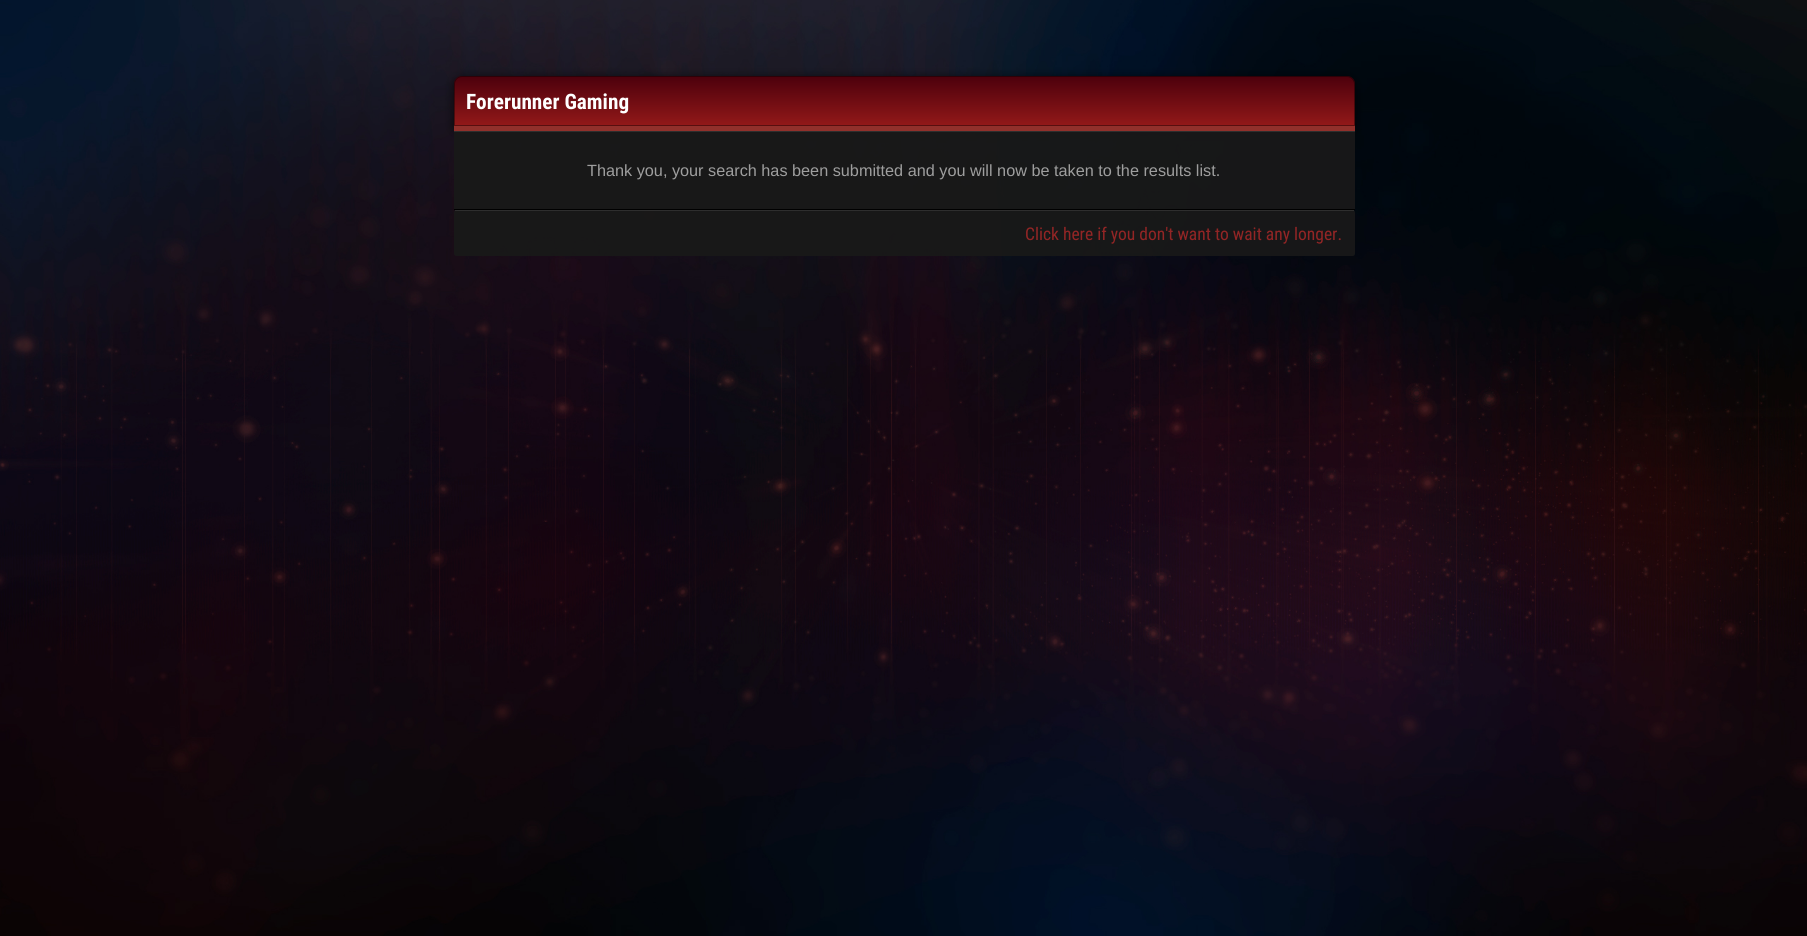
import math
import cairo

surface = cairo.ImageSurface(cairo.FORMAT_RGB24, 1807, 936)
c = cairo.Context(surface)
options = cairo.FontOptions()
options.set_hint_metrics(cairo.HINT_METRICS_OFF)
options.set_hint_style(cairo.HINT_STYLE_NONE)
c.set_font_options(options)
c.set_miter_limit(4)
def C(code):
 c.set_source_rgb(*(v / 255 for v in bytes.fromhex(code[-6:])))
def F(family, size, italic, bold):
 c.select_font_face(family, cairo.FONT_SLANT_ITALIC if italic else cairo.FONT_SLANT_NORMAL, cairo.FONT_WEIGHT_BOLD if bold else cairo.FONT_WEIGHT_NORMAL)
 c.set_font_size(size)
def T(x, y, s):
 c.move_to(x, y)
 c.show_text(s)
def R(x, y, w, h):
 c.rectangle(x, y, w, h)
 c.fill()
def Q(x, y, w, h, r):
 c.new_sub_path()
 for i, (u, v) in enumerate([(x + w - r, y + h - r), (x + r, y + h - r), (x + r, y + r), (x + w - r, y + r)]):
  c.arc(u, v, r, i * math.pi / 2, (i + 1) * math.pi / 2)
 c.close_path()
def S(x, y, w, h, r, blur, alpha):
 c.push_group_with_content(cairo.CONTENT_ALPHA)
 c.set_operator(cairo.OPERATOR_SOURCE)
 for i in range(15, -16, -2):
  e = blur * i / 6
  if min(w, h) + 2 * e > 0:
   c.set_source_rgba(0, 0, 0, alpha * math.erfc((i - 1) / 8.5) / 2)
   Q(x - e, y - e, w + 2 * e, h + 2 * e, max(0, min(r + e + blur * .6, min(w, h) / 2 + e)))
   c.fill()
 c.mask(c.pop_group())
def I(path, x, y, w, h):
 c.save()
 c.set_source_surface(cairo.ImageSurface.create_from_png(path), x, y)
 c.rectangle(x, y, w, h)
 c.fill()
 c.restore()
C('ffffff')
c.paint()
I('1.png',0,0,1807,936)
C('000000')
S(454,78,901,55,8,5,.7)
gradient = cairo.LinearGradient(904,126,904,76)
gradient.add_color_stop_rgba(0,0.576,0.098,0.098,1)
gradient.add_color_stop_rgba(1,0.298,0,0.047,1)
c.set_source(gradient)
c.new_path()
c.move_to(462,76)
c.line_to(1347,76)
c.curve_to(1351.5,76,1355,79.5,1355,84)
c.line_to(1355,126)
c.line_to(454,126)
c.line_to(454,84)
c.curve_to(454,79.5,457.5,76,462,76)
c.close_path()
c.fill()
c.new_path()
c.move_to(462,76.5)
c.line_to(1347,76.5)
c.curve_to(1351,76.5,1354.5,80,1354.5,84)
c.line_to(1354.5,125.5)
c.line_to(454.5,125.5)
c.line_to(454.5,84)
c.curve_to(454.5,80,458,76.5,462,76.5)
c.close_path()
c.set_source_rgba(0,0,0,0.4)
c.set_line_width(1)
c.stroke()
C('91302b')
R(454,126,901,5)
F('Roboto Condensed',21.25,0,1)
C('ffffff')
T(466,109,'Forerunner Gaming')
c.set_source_rgba(0.098,0.098,0.098,0.95)
R(454,132,901,77)
C('2e2e2e')
R(454,131,901,1)
C('000000')
R(454,209,901,1)
F('Liberation Sans',16.25,0,0)
C('9e9e9e')
T(587,176,'Thank you, your search has been submitted and you will now be taken to the results list.')
c.set_source_rgba(0.098,0.098,0.098,0.95)
Q(454,210,901,46,2.5)
c.fill()
C('2e2e2e')
R(455,210,899,1)
F('Roboto Condensed',17.5,0,0)
C('932525')
T(1025,240,'Click here if you don\'t want to wait any longer.')
surface.write_to_png('o.png')
